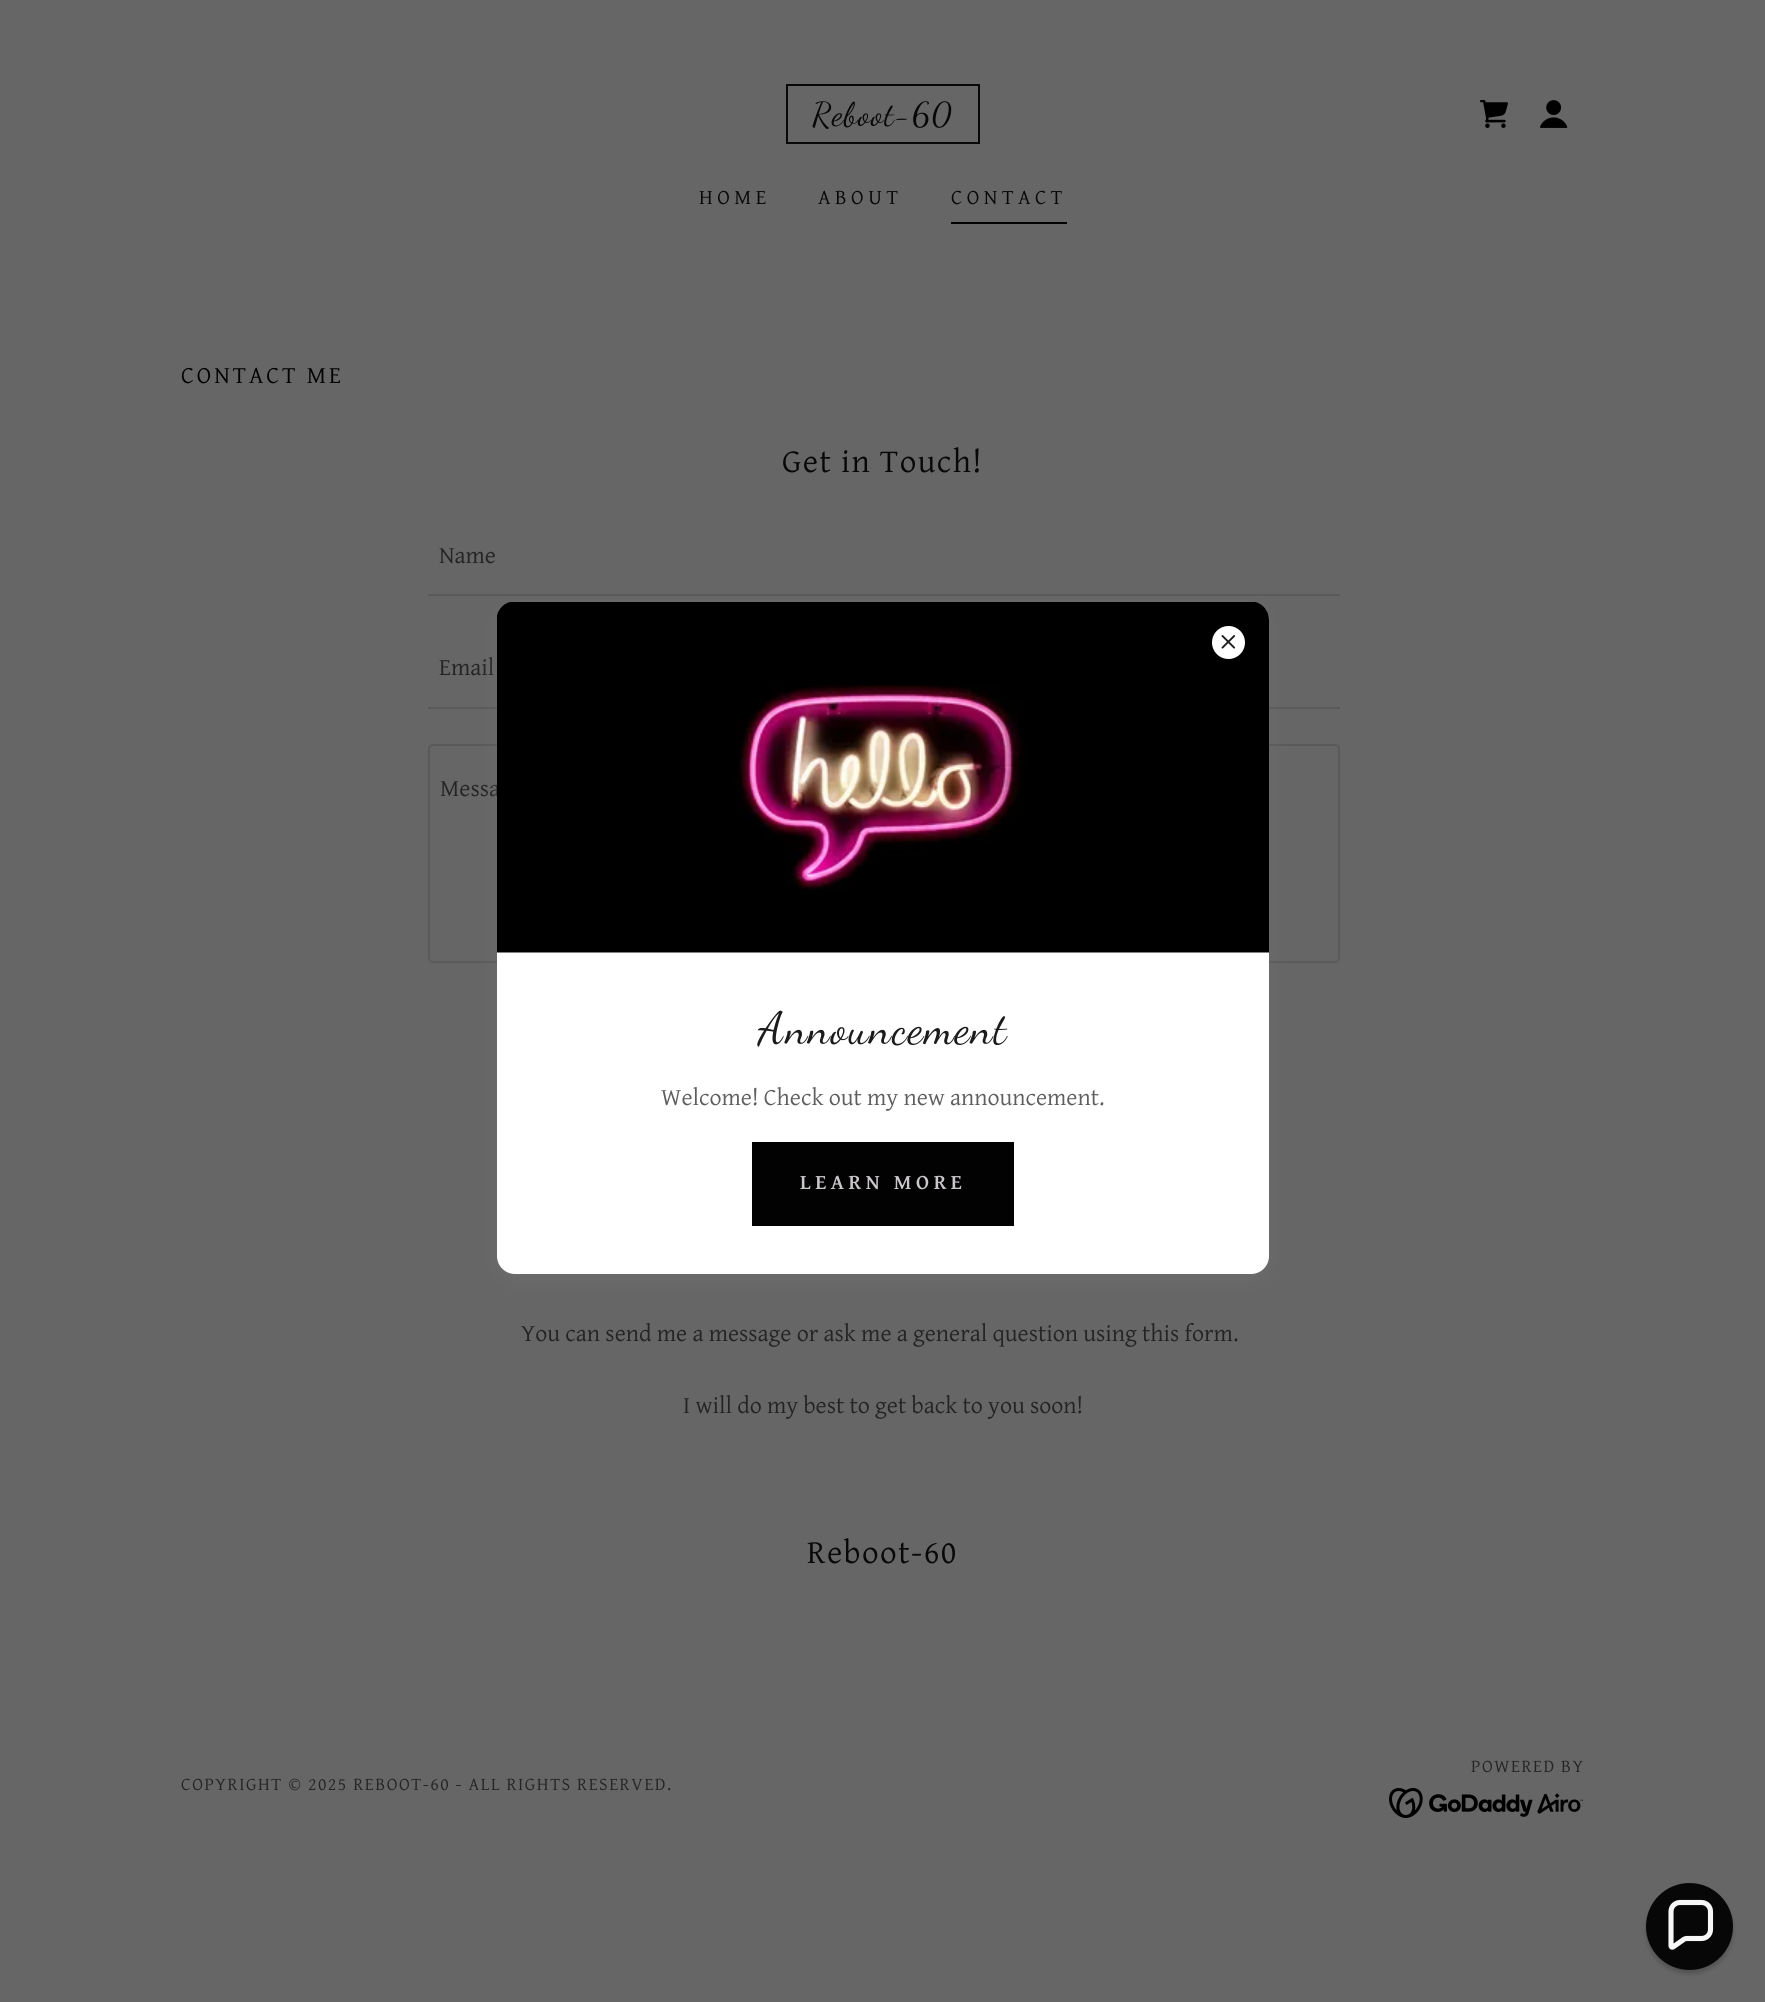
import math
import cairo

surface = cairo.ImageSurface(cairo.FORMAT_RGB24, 1765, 2002)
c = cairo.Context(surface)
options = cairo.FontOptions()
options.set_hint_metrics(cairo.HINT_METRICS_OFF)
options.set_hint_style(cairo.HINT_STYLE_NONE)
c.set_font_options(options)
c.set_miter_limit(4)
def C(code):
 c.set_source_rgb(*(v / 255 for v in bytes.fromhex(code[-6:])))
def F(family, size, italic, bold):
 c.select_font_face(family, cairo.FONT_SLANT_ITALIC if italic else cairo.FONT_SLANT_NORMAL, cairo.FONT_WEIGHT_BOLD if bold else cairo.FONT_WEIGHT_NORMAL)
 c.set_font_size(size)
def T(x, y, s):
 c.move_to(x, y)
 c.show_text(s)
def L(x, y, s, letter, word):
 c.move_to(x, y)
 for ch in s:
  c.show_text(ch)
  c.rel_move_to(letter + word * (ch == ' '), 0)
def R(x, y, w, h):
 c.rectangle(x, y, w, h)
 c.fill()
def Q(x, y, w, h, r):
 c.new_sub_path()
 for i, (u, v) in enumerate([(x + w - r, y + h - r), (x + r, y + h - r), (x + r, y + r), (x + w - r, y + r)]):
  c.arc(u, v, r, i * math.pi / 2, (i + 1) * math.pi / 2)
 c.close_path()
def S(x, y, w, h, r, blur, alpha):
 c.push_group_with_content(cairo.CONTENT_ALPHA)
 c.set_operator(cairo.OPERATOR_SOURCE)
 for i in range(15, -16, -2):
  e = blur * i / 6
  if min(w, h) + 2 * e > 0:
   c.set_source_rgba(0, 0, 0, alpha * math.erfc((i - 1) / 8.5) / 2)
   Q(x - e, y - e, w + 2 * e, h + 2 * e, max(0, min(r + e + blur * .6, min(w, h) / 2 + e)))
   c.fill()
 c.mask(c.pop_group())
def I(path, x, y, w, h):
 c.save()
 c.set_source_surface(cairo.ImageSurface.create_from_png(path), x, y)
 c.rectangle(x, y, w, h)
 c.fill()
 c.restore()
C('666666')
c.paint()
c.rectangle(787,85,192,58)
C('080808')
c.stroke()
F('Dancing Script',33,0,0)
L(812,125,'Reboot-60',1,0)
I('1.png',1480,100,28,28)
I('2.png',1540,100,28,28)
F('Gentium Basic',21,0,0)
L(699,204,'HOME',4.5,0)
L(818,204,'ABOUT',4.5,0)
C('010101')
R(951,222,116,2)
C('080808')
L(951,204,'CONTACT',4.5,0)
F('Gentium Basic',24,0,0)
C('010101')
L(181,383,'CONTACT ME',3,0)
F('Gentium Basic',33,0,0)
C('080808')
L(782,472,'Get in Touch!',1.5,0)
F('Gentium Basic',24,0,0)
C('242424')
T(439,563,'Name')
C('5a5a5a')
R(428,594,912,2)
C('242424')
T(439,675,'Email')
C('5a5a5a')
R(428,707,912,2)
Q(429,745,910,217,4)
c.stroke()
C('242424')
T(440,796,'Messa')
T(521,1341,'You can send me a message or ask me a general question using this form.')
T(683,1413,'I will do my best to get back to you soon!')
F('Gentium Basic',33,0,0)
C('080808')
L(807,1563,'Reboot-60',1.5,0)
C('757575')
S(497,608,772,672,18,9,.4)
C('ffffff')
Q(497,602,772,672,18)
c.fill()
I('4.png',497,602,772,351)
c.arc(1228.5,642.5,16.5,0,2 * math.pi)
c.fill()
I('3.png',1221,635,15,14)
F('Dancing Script',45,0,0)
C('1b1b1b')
L(758,1043,'Announcement',1.4,0)
F('Gentium Basic',24,0,0)
C('5e5e5e')
T(661,1105,'Welcome! Check out my new announcement.')
C('030203')
R(752,1142,262,84)
F('Gentium Basic',21,0,1)
C('cac7ca')
L(800,1189,'LEARN MORE',4.5,0)
F('Gentium Basic',18,0,0)
C('242424')
L(1471,1772,'POWERED BY',1.5,0)
I('5.png',1389,1788,194,30)
L(181,1790,'COPYRIGHT © 2025 REBOOT-60 - ALL RIGHTS RESERVED.',1.5,0)
C('050505')
S(1646,1887,87,87,43.5,2,.2)
C('080708')
c.arc(1689.5,1926.5,43.5,0,2 * math.pi)
c.fill()
c.new_path()
c.move_to(1701.5,1902.5)
c.line_to(1680,1902.5)
c.curve_to(1675,1902.5,1671,1906.5,1671,1911.5)
c.line_to(1671,1946)
c.curve_to(1671,1947,1672,1947.5,1673,1947)
c.line_to(1683,1940)
c.curve_to(1684,1939,1685.5,1938.5,1687,1938.5)
c.line_to(1701.5,1938.5)
c.curve_to(1706.5,1938.5,1710.5,1934.5,1710.5,1929.5)
c.line_to(1710.5,1911.5)
c.curve_to(1710.5,1906.5,1706.5,1902.5,1701.5,1902.5)
c.close_path()
C('f7f7f7')
c.set_line_width(5.1)
c.stroke()
surface.write_to_png('o.png')
